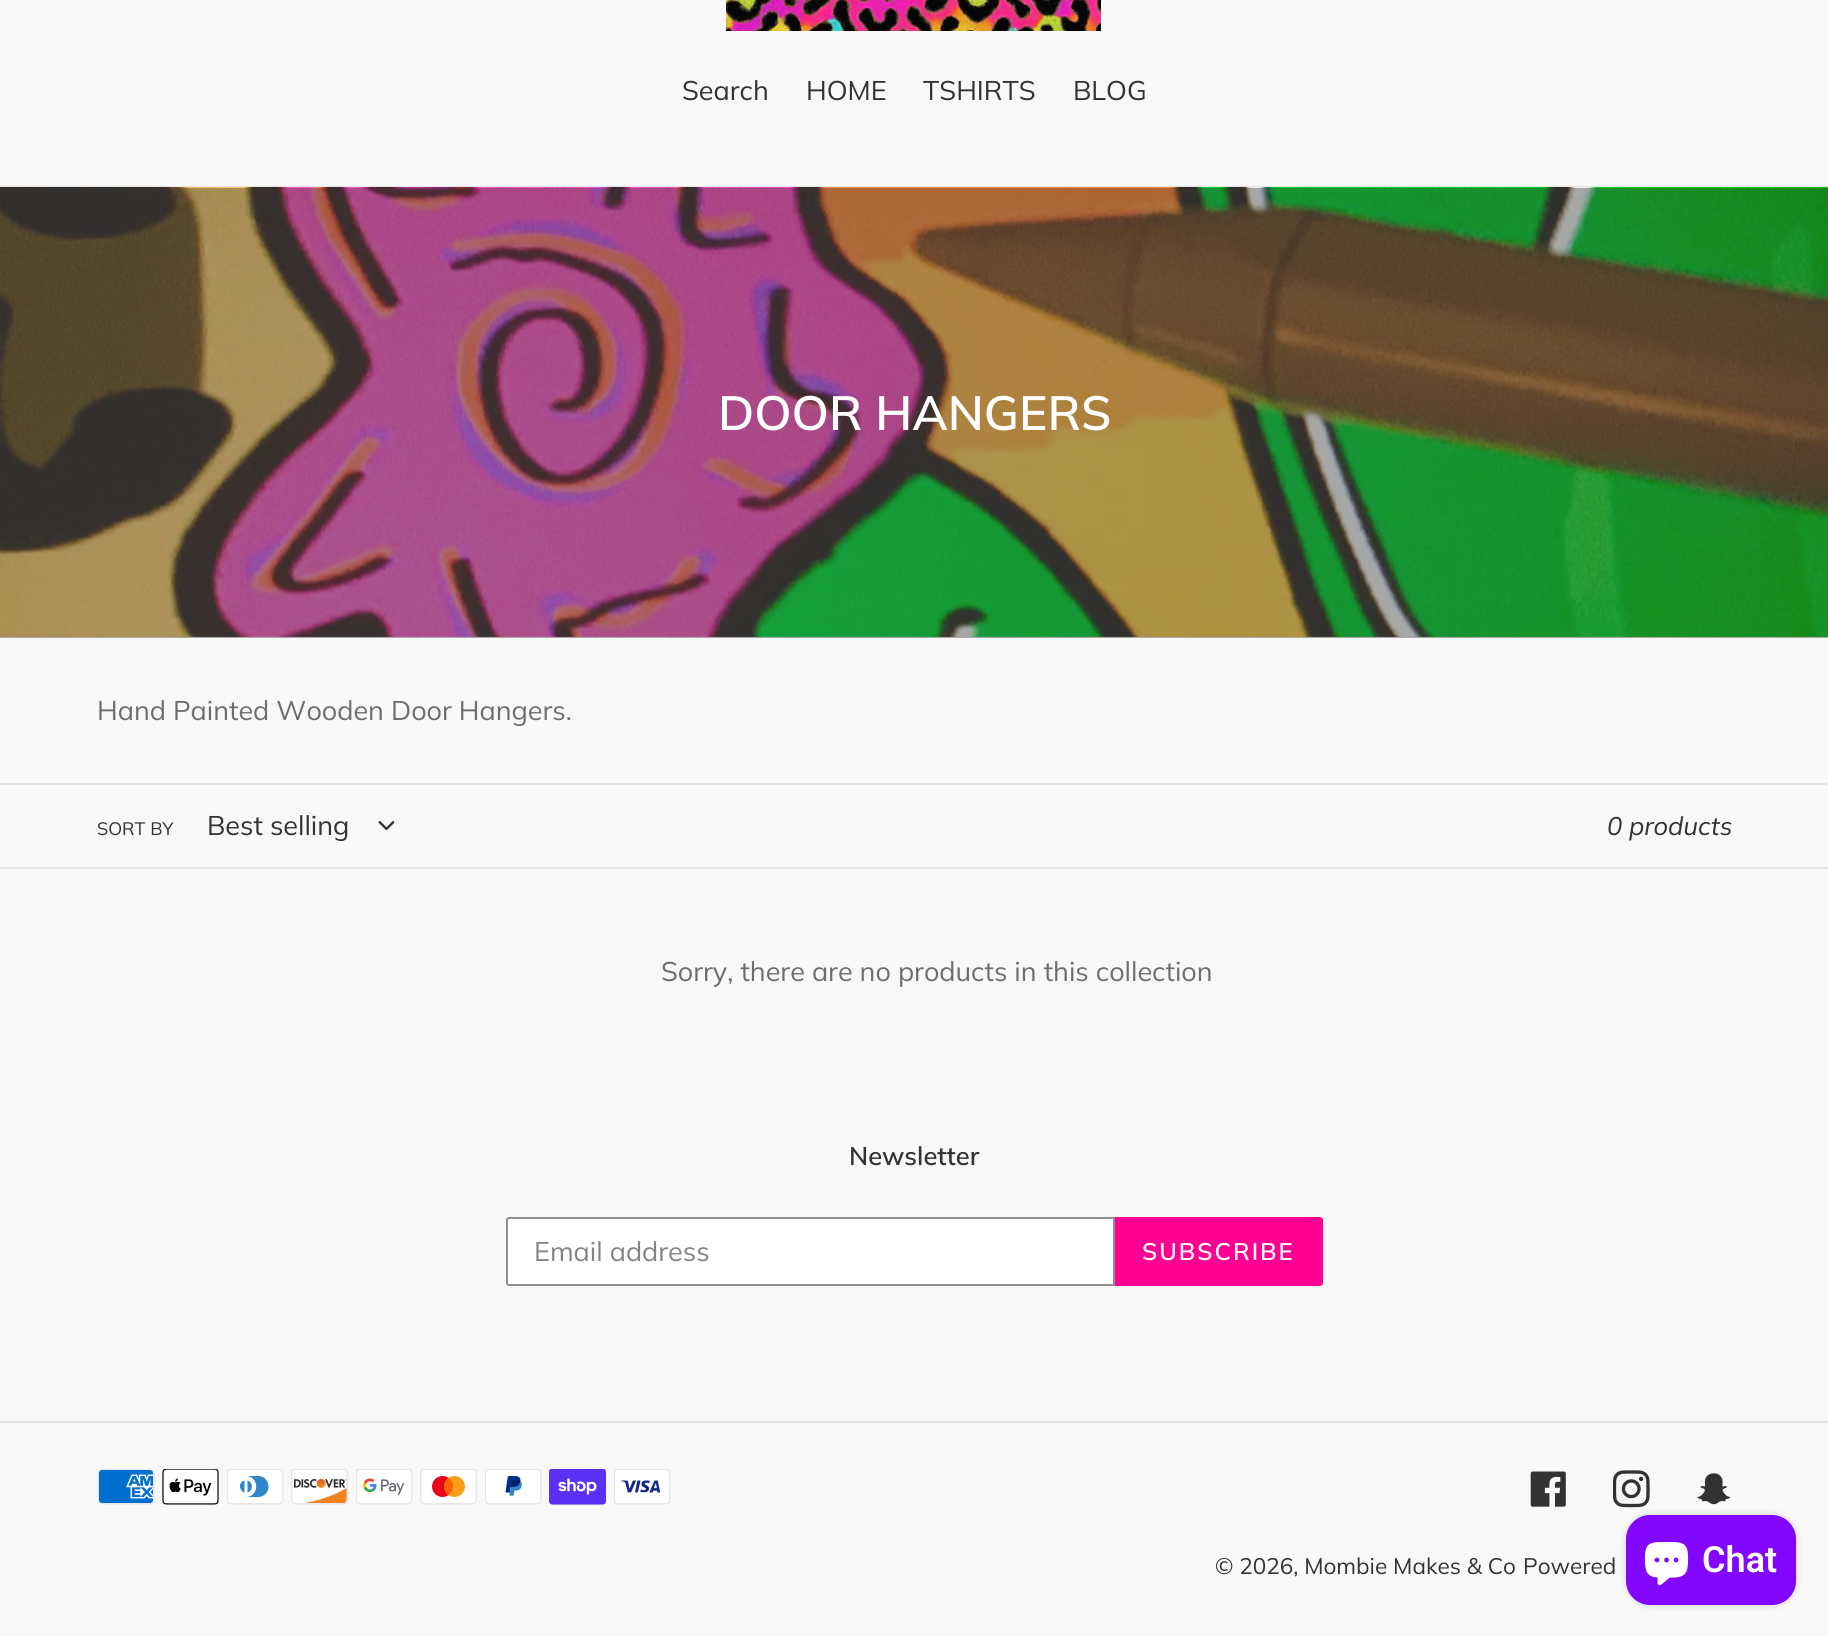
import math
import cairo

surface = cairo.ImageSurface(cairo.FORMAT_RGB24, 1828, 1636)
c = cairo.Context(surface)
options = cairo.FontOptions()
options.set_hint_metrics(cairo.HINT_METRICS_OFF)
options.set_hint_style(cairo.HINT_STYLE_NONE)
c.set_font_options(options)
c.set_miter_limit(4)
def C(code):
 c.set_source_rgb(*(v / 255 for v in bytes.fromhex(code[-6:])))
def F(family, size, italic, bold):
 c.select_font_face(family, cairo.FONT_SLANT_ITALIC if italic else cairo.FONT_SLANT_NORMAL, cairo.FONT_WEIGHT_BOLD if bold else cairo.FONT_WEIGHT_NORMAL)
 c.set_font_size(size)
def T(x, y, s):
 c.move_to(x, y)
 c.show_text(s)
def L(x, y, s, letter, word):
 c.move_to(x, y)
 for ch in s:
  c.show_text(ch)
  c.rel_move_to(letter + word * (ch == ' '), 0)
def R(x, y, w, h):
 c.rectangle(x, y, w, h)
 c.fill()
def Q(x, y, w, h, r):
 c.new_sub_path()
 for i, (u, v) in enumerate([(x + w - r, y + h - r), (x + r, y + h - r), (x + r, y + r), (x + w - r, y + r)]):
  c.arc(u, v, r, i * math.pi / 2, (i + 1) * math.pi / 2)
 c.close_path()
def S(x, y, w, h, r, blur, alpha):
 c.push_group_with_content(cairo.CONTENT_ALPHA)
 c.set_operator(cairo.OPERATOR_SOURCE)
 for i in range(15, -16, -2):
  e = blur * i / 6
  if min(w, h) + 2 * e > 0:
   c.set_source_rgba(0, 0, 0, alpha * math.erfc((i - 1) / 8.5) / 2)
   Q(x - e, y - e, w + 2 * e, h + 2 * e, max(0, min(r + e + blur * .6, min(w, h) / 2 + e)))
   c.fill()
 c.mask(c.pop_group())
def I(path, x, y, w, h):
 c.save()
 c.set_source_surface(cairo.ImageSurface.create_from_png(path), x, y)
 c.rectangle(x, y, w, h)
 c.fill()
 c.restore()
C('f8f8f8')
c.paint()
C('a9a9a9')
R(0,635,1828,3)
I('1.png',726,0,375,31)
C('e4e4e4')
R(0,186,1828,1)
F('Muli',27,0,0)
C('333232')
T(682,100,'Search')
T(806,100,'HOME')
T(923,100,'TSHIRTS')
T(1073,100,'BLOG')
I('2.png',0,187,1828,450)
F('Muli SemiBold',48,0,0)
C('ffffff')
T(718,430,'DOOR HANGERS')
F('Muli',27,0,0)
C('6d6d6d')
T(97,720,'Hand Painted Wooden Door Hangers.')
C('e4e4e4')
R(0,783,1828,2)
R(0,867,1828,2)
F('Muli',18,0,0)
C('333232')
T(97,835,'SORT BY')
F('Muli',27,0,0)
T(207,835,'Best selling')
I('3.png',378,821,17,10)
F('Muli',25.5,1,0)
T(1607,835,'0 products')
F('Muli',27,0,0)
C('6d6d6d')
T(661,981,'Sorry, there are no products in this collection')
F('Muli SemiBold',25.5,0,0)
C('333232')
T(849,1165,'Newsletter')
C('ffffff')
c.new_path()
c.move_to(509,1218)
c.line_to(1114,1218)
c.line_to(1114,1285)
c.line_to(509,1285)
c.curve_to(508,1285,507,1284,507,1283)
c.line_to(507,1220)
c.curve_to(507,1219,508,1218,509,1218)
c.close_path()
c.fill_preserve()
C('909090')
c.stroke()
F('Muli',27,0,0)
C('858484')
T(534,1261,'Email address')
C('ff0092')
c.new_path()
c.move_to(1115,1217)
c.line_to(1320,1217)
c.curve_to(1321.5,1217,1323,1218.5,1323,1220)
c.line_to(1323,1283)
c.curve_to(1323,1284.5,1321.5,1286,1320,1286)
c.line_to(1115,1286)
c.close_path()
c.fill()
F('Muli SemiBold',24,0,0)
C('ffffff')
L(1142,1260,'SUBSCRIBE',2,0)
C('dddddd')
R(0,1421,1828,2)
I('4.png',98,1469,57,36)
I('5.png',162,1469,57,36)
I('6.png',227,1469,57,36)
I('7.png',291,1469,57,36)
I('8.png',356,1469,57,36)
I('9.png',420,1469,57,36)
I('10.png',485,1469,57,36)
I('11.png',549,1469,57,36)
I('12.png',614,1469,57,36)
I('13.png',1530,1471,36,36)
I('14.png',1613,1470,37,38)
I('15.png',1697,1473,34,32)
F('Muli',22.5,0,0)
C('333232')
T(1215,1574,'© 2026, Mombie Makes & Co')
T(1523,1574,'Powered')
C('000000')
S(1626,1515,170,90,24,4,.15)
C('8306ff')
Q(1626,1515,170,90,24)
c.fill()
I('16.png',1644,1542,45,44)
F('Roboto SemiBold',36,0,0)
C('ffffff')
T(1702,1572,'Chat')
surface.write_to_png('o.png')
